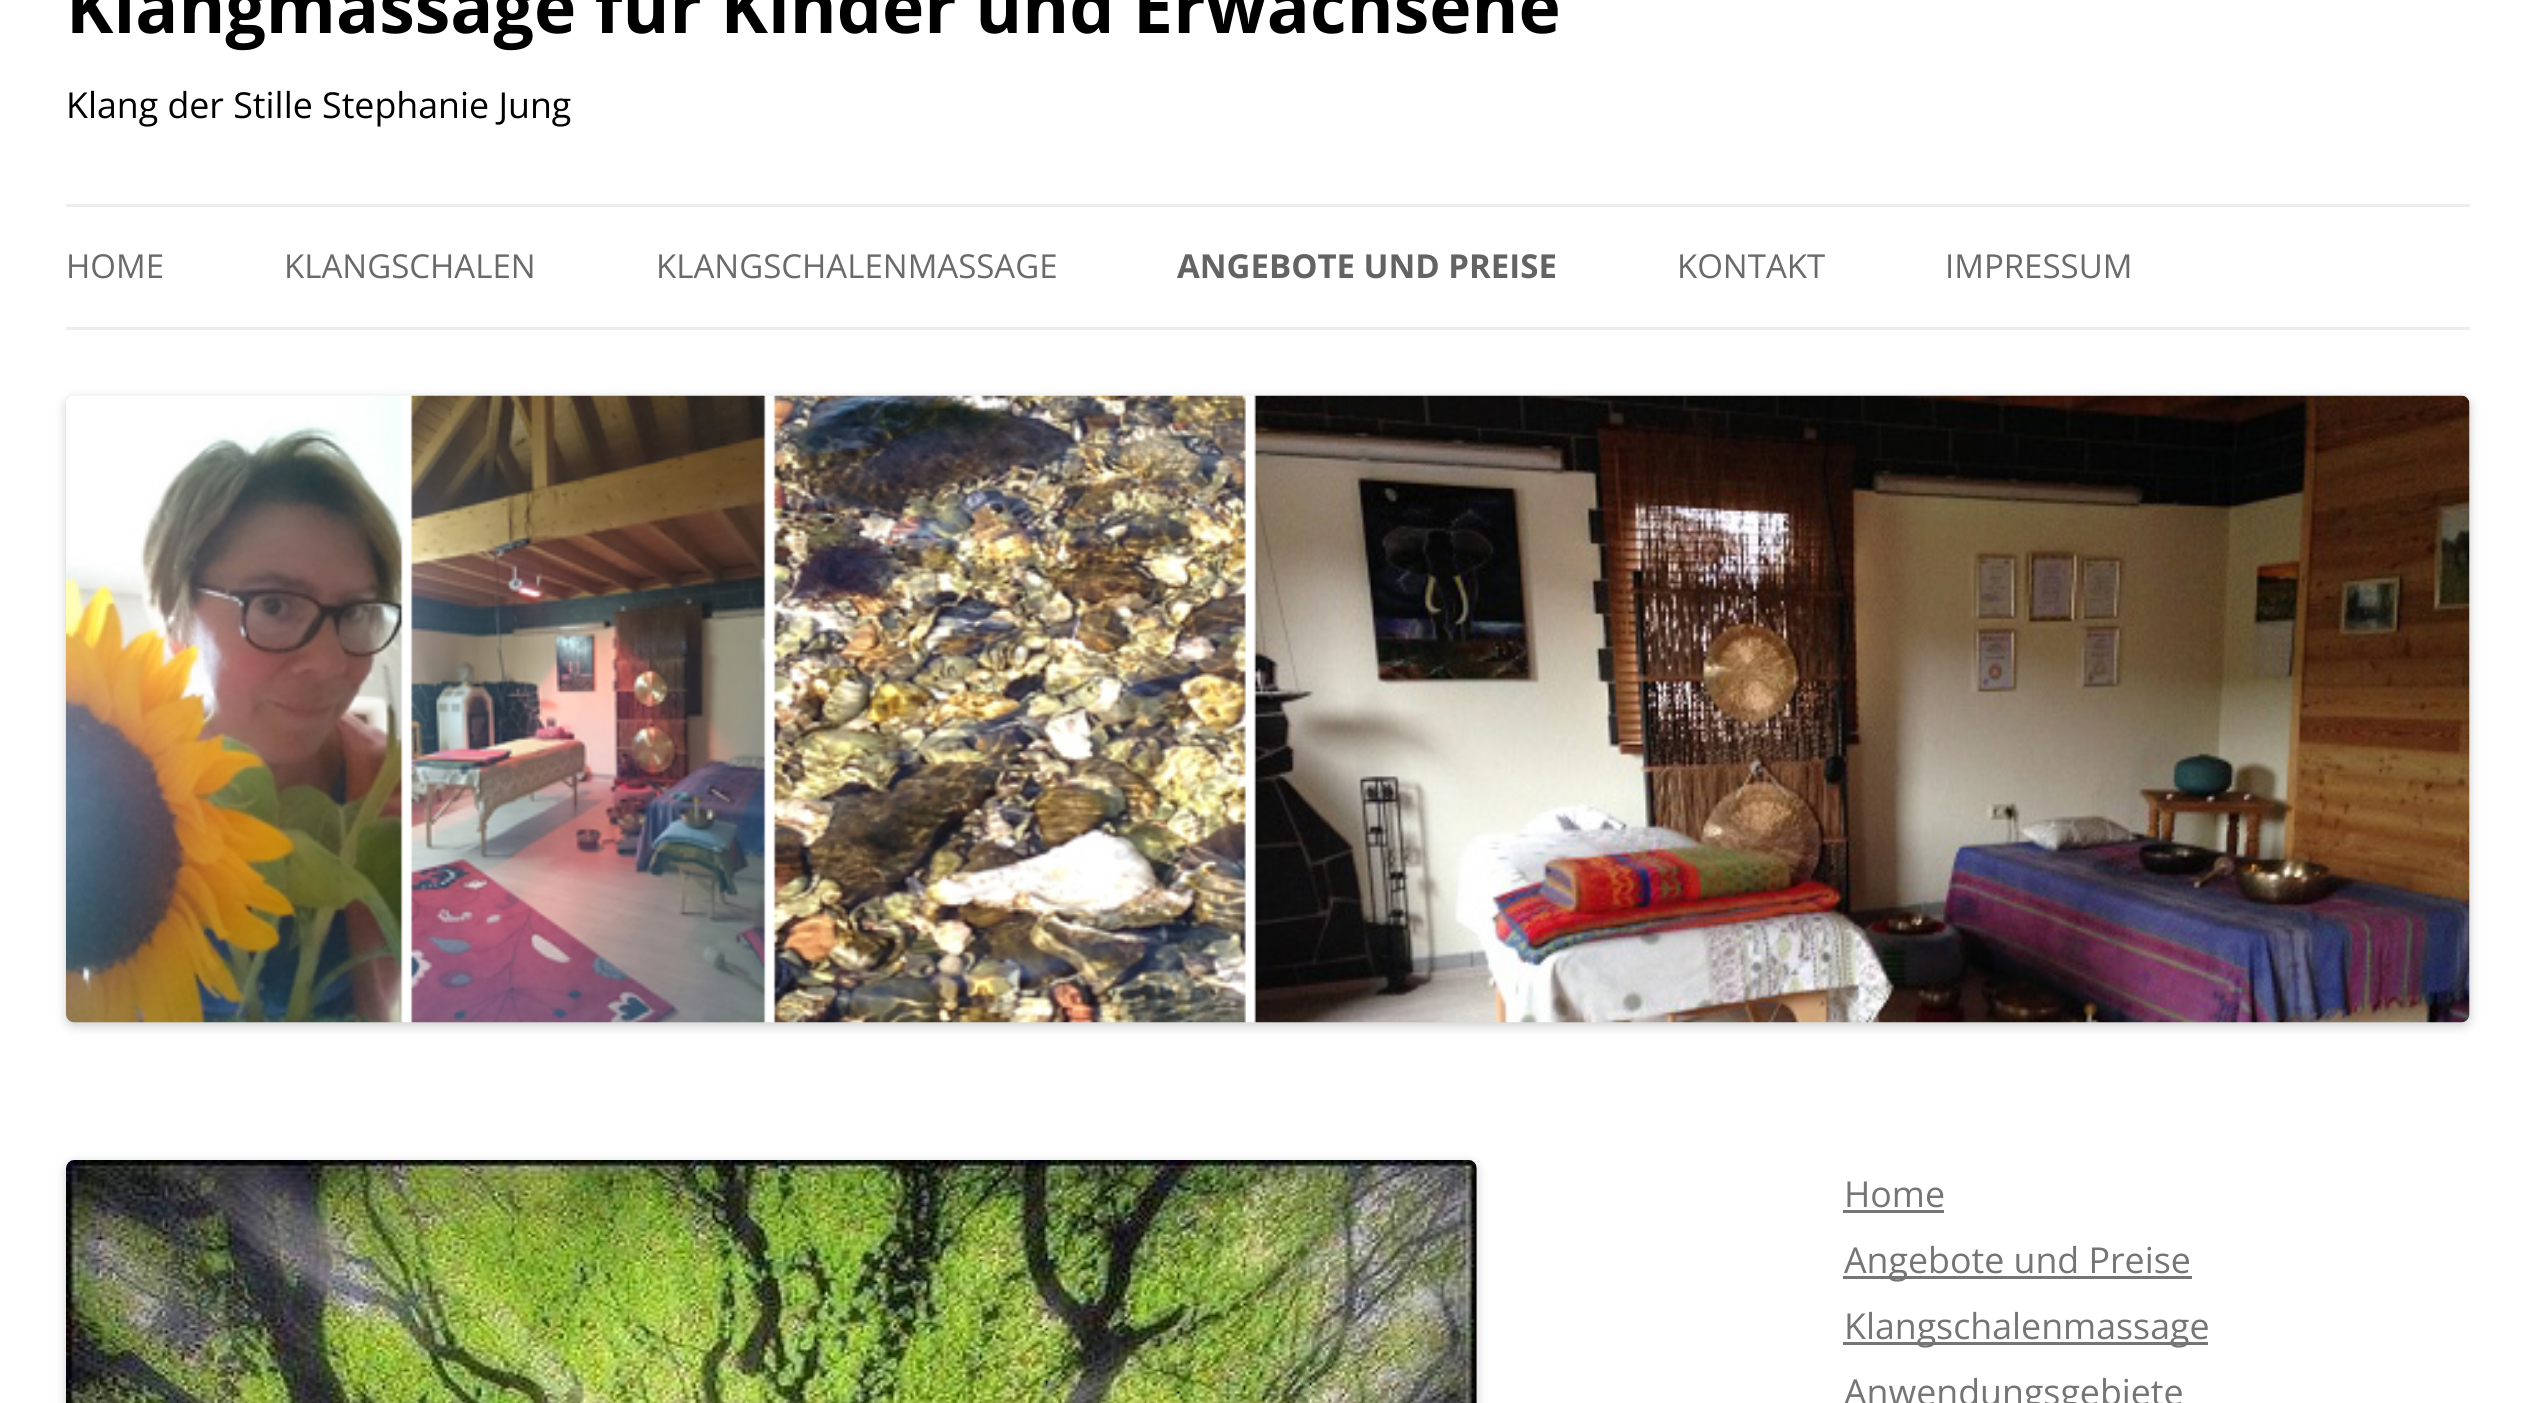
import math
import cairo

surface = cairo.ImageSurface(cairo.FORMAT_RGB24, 2534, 1403)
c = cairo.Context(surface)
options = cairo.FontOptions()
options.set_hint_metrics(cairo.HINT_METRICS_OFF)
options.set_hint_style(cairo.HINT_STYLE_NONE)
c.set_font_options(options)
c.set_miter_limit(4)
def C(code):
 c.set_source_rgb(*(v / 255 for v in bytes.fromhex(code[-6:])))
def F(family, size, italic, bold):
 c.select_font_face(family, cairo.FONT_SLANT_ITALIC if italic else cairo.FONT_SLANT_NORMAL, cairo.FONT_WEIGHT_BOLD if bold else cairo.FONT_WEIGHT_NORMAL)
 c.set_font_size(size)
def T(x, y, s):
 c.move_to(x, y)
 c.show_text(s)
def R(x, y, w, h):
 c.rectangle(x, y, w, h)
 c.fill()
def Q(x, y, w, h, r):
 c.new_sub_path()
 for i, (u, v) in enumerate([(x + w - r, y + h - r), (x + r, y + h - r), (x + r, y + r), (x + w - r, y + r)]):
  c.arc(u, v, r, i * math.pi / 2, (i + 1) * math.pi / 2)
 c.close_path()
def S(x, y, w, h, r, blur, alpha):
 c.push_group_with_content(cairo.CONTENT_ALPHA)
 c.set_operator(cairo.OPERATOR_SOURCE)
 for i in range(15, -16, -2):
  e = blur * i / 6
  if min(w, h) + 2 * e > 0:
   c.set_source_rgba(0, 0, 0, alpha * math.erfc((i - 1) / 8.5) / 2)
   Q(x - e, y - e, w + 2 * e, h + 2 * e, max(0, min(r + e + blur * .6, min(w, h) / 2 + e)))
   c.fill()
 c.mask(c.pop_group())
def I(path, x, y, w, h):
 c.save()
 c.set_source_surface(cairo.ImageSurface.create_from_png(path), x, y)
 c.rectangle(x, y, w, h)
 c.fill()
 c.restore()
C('ffffff')
c.paint()
F('Open Sans',71.5,0,1)
C('000000')
T(66,33,'Klangmassage für Kinder und Erwachsene')
F('Open Sans',35.75,0,0)
T(66,118,'Klang der Stille Stephanie Jung')
C('ededed')
R(66,204,2404,3)
R(66,327,2404,3)
F('Open Sans',33,0,0)
C('6a6a6a')
T(66,278,'HOME')
T(284,278,'KLANGSCHALEN')
T(656,278,'KLANGSCHALENMASSAGE')
F('Open Sans',33,0,1)
C('636363')
T(1177,278,'ANGEBOTE UND PREISE')
F('Open Sans',33,0,0)
C('6a6a6a')
T(1677,278,'KONTAKT')
T(1945,278,'IMPRESSUM')
C('000000')
S(66,399,2404,627,8,5.5,.2)
I('1.png',66,395,2404,628)
S(66,1163,1411,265,8,5.5,.2)
I('2.png',66,1160,1411,243)
F('Open Sans',35.75,0,0)
C('757575')
T(1844,1207,'Home')
R(1843,1210,101,3)
R(1843,1276,349,3)
T(1844,1273,'Angebote und Preise')
R(1843,1342,365,3)
T(1844,1339,'Klangschalenmassage')
T(1844,1405,'Anwendungsgebiete')
surface.write_to_png('o.png')
